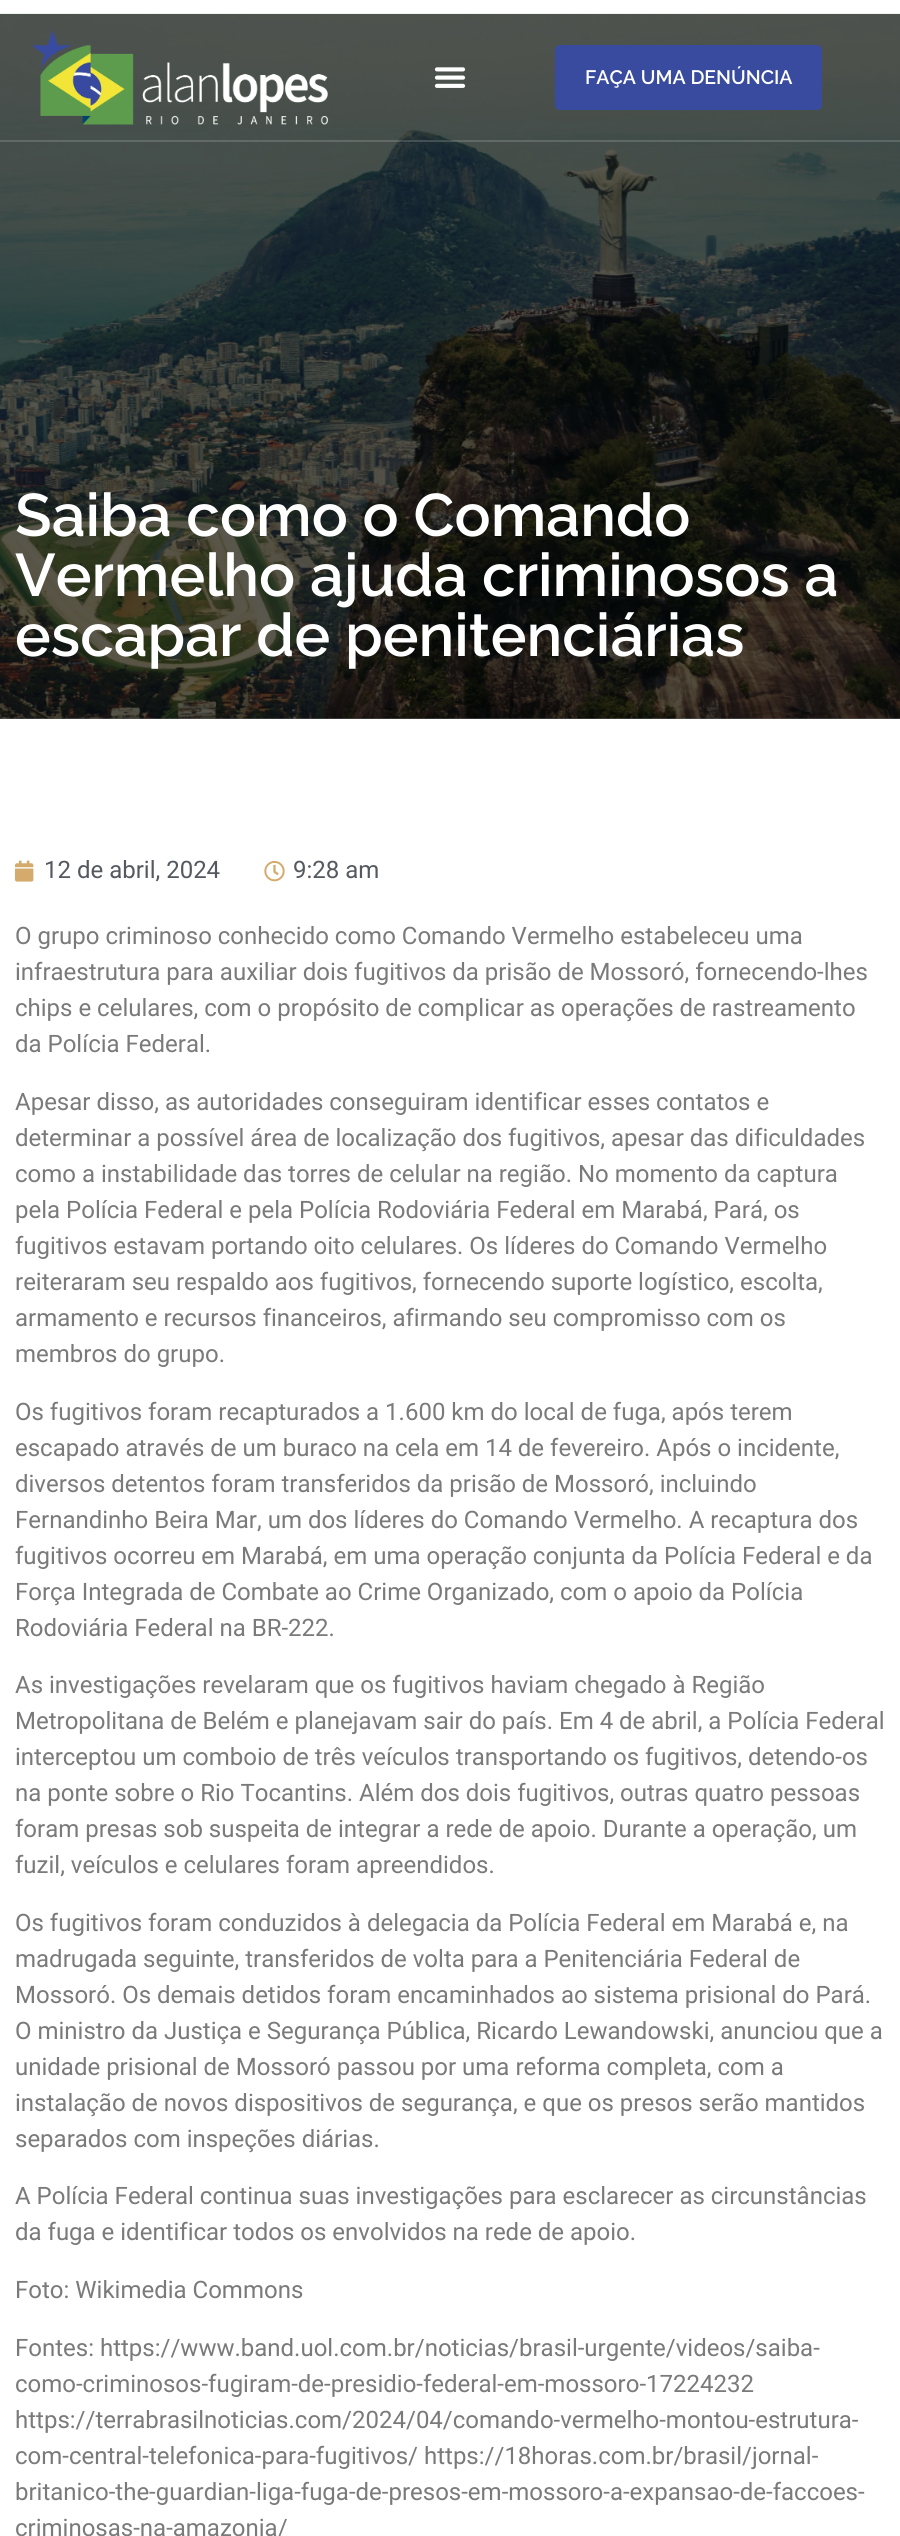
import math
import cairo

surface = cairo.ImageSurface(cairo.FORMAT_RGB24, 900, 2536)
c = cairo.Context(surface)
options = cairo.FontOptions()
options.set_hint_metrics(cairo.HINT_METRICS_OFF)
options.set_hint_style(cairo.HINT_STYLE_NONE)
c.set_font_options(options)
c.set_miter_limit(4)
def C(code):
 c.set_source_rgb(*(v / 255 for v in bytes.fromhex(code[-6:])))
def F(family, size, italic, bold):
 c.select_font_face(family, cairo.FONT_SLANT_ITALIC if italic else cairo.FONT_SLANT_NORMAL, cairo.FONT_WEIGHT_BOLD if bold else cairo.FONT_WEIGHT_NORMAL)
 c.set_font_size(size)
def T(x, y, s):
 c.move_to(x, y)
 c.show_text(s)
def R(x, y, w, h):
 c.rectangle(x, y, w, h)
 c.fill()
def Q(x, y, w, h, r):
 c.new_sub_path()
 for i, (u, v) in enumerate([(x + w - r, y + h - r), (x + r, y + h - r), (x + r, y + r), (x + w - r, y + r)]):
  c.arc(u, v, r, i * math.pi / 2, (i + 1) * math.pi / 2)
 c.close_path()
def I(path, x, y, w, h):
 c.save()
 c.set_source_surface(cairo.ImageSurface.create_from_png(path), x, y)
 c.rectangle(x, y, w, h)
 c.fill()
 c.restore()
C('ffffff')
c.paint()
C('595959')
R(0,718,900,1)
I('3.png',0,13,900,706)
c.set_source_rgba(0.847,0.847,0.847,0.2)
R(0,140,900,2)
I('1.png',31,30,298,95)
I('2.png',434,67,32,21)
C('384b9f')
Q(555,45,267,65,5)
c.fill()
F('Raleway SemiBold',19.5,0,0)
C('ffffff')
T(585,84,'FAÇA UMA DENÚNCIA')
F('Raleway SemiBold',60,0,0)
T(15,536,'Saiba como o Comando')
T(15,596,'Vermelho ajuda criminosos a')
T(15,656,'escapar de penitenciárias')
I('4.png',15,860,19,22)
F('Roboto',24,0,0)
C('54595f')
T(44,878,'12 de abril, 2024')
I('5.png',264,861,21,21)
T(293,878,'9:28 am')
C('7a7a7a')
T(15,944,'O grupo criminoso conhecido como Comando Vermelho estabeleceu uma')
T(15,980,'infraestrutura para auxiliar dois fugitivos da prisão de Mossoró, fornecendo-lhes')
T(15,1016,'chips e celulares, com o propósito de complicar as operações de rastreamento')
T(15,1052,'da Polícia Federal.')
T(15,1110,'Apesar disso, as autoridades conseguiram identificar esses contatos e')
T(15,1146,'determinar a possível área de localização dos fugitivos, apesar das dificuldades')
T(15,1182,'como a instabilidade das torres de celular na região. No momento da captura')
T(15,1218,'pela Polícia Federal e pela Polícia Rodoviária Federal em Marabá, Pará, os')
T(15,1254,'fugitivos estavam portando oito celulares. Os líderes do Comando Vermelho')
T(15,1290,'reiteraram seu respaldo aos fugitivos, fornecendo suporte logístico, escolta,')
T(15,1326,'armamento e recursos financeiros, afirmando seu compromisso com os')
T(15,1362,'membros do grupo.')
T(15,1420,'Os fugitivos foram recapturados a 1.600 km do local de fuga, após terem')
T(15,1456,'escapado através de um buraco na cela em 14 de fevereiro. Após o incidente,')
T(15,1492,'diversos detentos foram transferidos da prisão de Mossoró, incluindo')
T(15,1528,'Fernandinho Beira Mar, um dos líderes do Comando Vermelho. A recaptura dos')
T(15,1564,'fugitivos ocorreu em Marabá, em uma operação conjunta da Polícia Federal e da')
T(15,1600,'Força Integrada de Combate ao Crime Organizado, com o apoio da Polícia')
T(15,1636,'Rodoviária Federal na BR-222.')
T(15,1693,'As investigações revelaram que os fugitivos haviam chegado à Região')
T(15,1729,'Metropolitana de Belém e planejavam sair do país. Em 4 de abril, a Polícia Federal')
T(15,1765,'interceptou um comboio de três veículos transportando os fugitivos, detendo-os')
T(15,1801,'na ponte sobre o Rio Tocantins. Além dos dois fugitivos, outras quatro pessoas')
T(15,1837,'foram presas sob suspeita de integrar a rede de apoio. Durante a operação, um')
T(15,1873,'fuzil, veículos e celulares foram apreendidos.')
T(15,1931,'Os fugitivos foram conduzidos à delegacia da Polícia Federal em Marabá e, na')
T(15,1967,'madrugada seguinte, transferidos de volta para a Penitenciária Federal de')
T(15,2003,'Mossoró. Os demais detidos foram encaminhados ao sistema prisional do Pará.')
T(15,2039,'O ministro da Justiça e Segurança Pública, Ricardo Lewandowski, anunciou que a')
T(15,2075,'unidade prisional de Mossoró passou por uma reforma completa, com a')
T(15,2111,'instalação de novos dispositivos de segurança, e que os presos serão mantidos')
T(15,2147,'separados com inspeções diárias.')
T(15,2204,'A Polícia Federal continua suas investigações para esclarecer as circunstâncias')
T(15,2240,'da fuga e identificar todos os envolvidos na rede de apoio.')
T(15,2298,'Foto: Wikimedia Commons')
T(15,2356,'Fontes: https://www.band.uol.com.br/noticias/brasil-urgente/videos/saiba-')
T(15,2392,'como-criminosos-fugiram-de-presidio-federal-em-mossoro-17224232')
T(15,2428,'https://terrabrasilnoticias.com/2024/04/comando-vermelho-montou-estrutura-')
T(15,2464,'com-central-telefonica-para-fugitivos/ https://18horas.com.br/brasil/jornal-')
T(15,2500,'britanico-the-guardian-liga-fuga-de-presos-em-mossoro-a-expansao-de-faccoes-')
T(15,2536,'criminosas-na-amazonia/')
surface.write_to_png('o.png')
